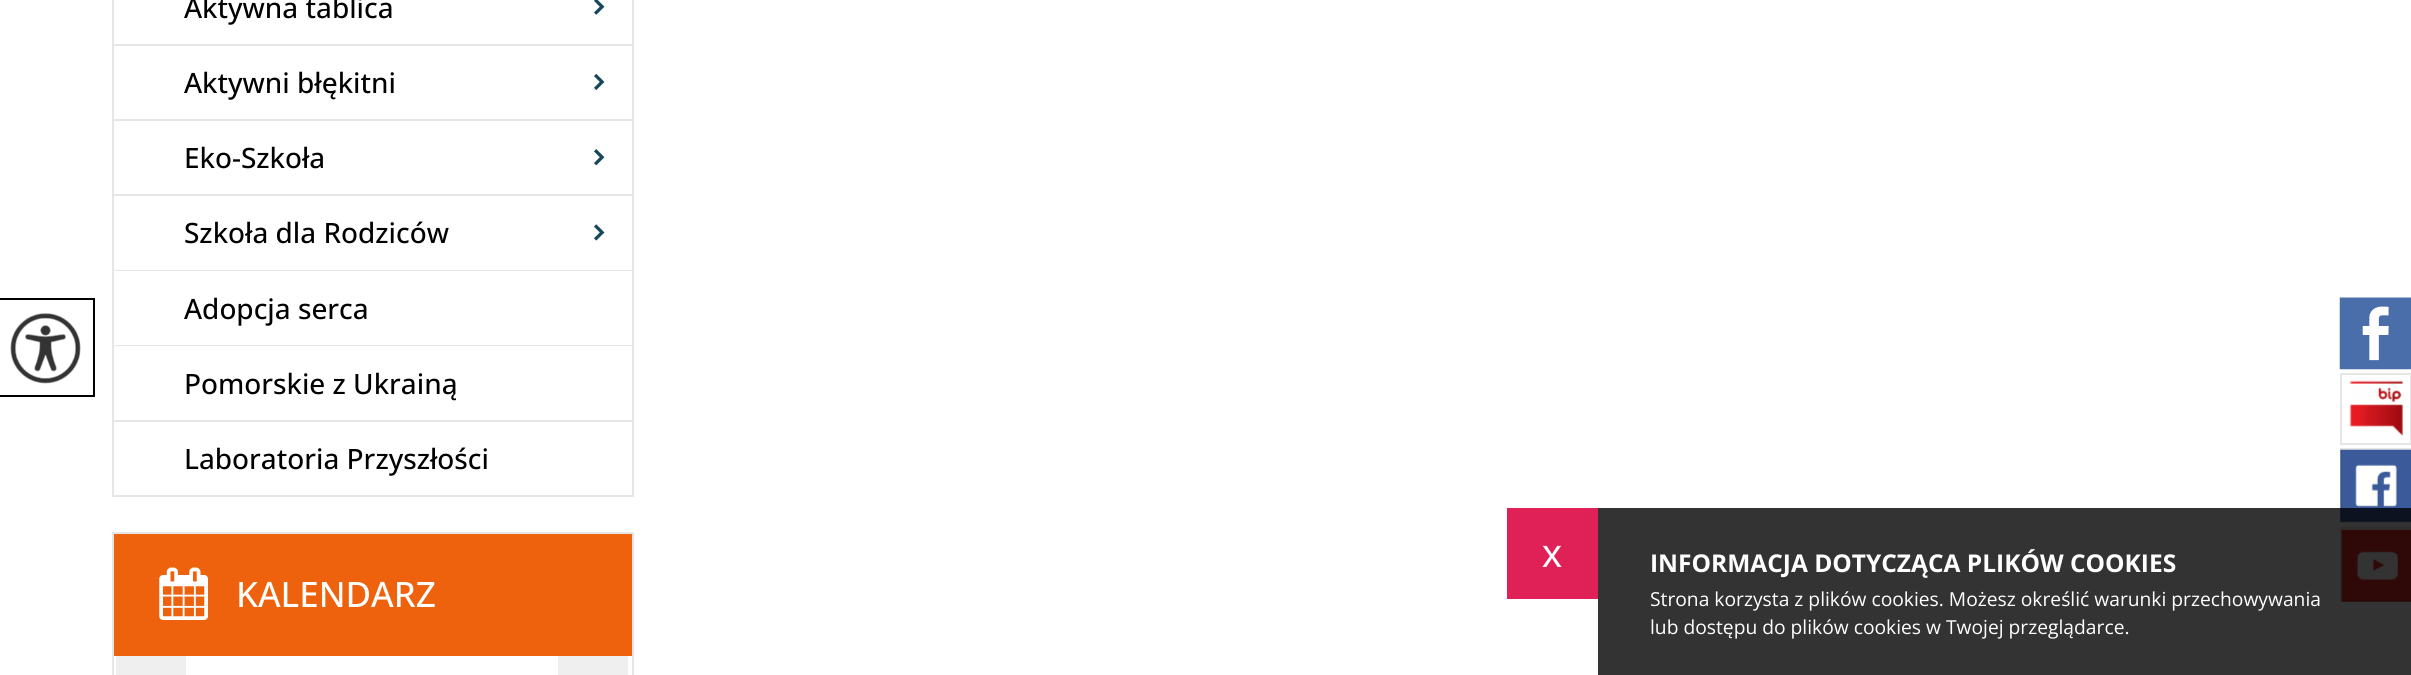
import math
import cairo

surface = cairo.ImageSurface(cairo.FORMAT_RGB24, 2411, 675)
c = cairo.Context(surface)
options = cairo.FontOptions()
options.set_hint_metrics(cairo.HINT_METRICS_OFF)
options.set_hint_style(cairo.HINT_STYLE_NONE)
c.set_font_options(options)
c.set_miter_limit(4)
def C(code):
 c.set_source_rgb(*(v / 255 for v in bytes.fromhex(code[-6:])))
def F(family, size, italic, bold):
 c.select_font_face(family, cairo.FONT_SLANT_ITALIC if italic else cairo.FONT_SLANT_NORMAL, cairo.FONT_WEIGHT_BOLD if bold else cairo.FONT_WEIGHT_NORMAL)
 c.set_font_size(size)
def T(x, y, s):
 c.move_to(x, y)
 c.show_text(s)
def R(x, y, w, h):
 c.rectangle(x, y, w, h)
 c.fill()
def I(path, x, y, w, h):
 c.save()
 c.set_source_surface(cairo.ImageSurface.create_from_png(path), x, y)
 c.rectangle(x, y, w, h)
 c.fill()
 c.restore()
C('ffffff')
c.paint()
c.rectangle(-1,299,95,97)
C('000000')
c.stroke()
I('1.png',10,313,71,71)
I('2.png',594,0,11,15)
C('e6e6e6')
c.new_path()
c.move_to(634,-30)
c.line_to(634,46)
c.line_to(632,44)
c.line_to(632,-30)
c.close_path()
c.fill()
c.set_source_rgba(0,0,0,0.1)
c.new_path()
c.move_to(634,46)
c.line_to(112,46)
c.line_to(114,44)
c.line_to(632,44)
c.close_path()
c.fill()
c.new_path()
c.move_to(112,46)
c.line_to(112,-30)
c.line_to(114,-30)
c.line_to(114,44)
c.close_path()
c.fill()
F('Open Sans Medium',28,0,0)
C('000000')
T(184,18,'Aktywna tablica')
I('3.png',594,74,11,16)
C('e6e6e6')
c.new_path()
c.move_to(634,46)
c.line_to(634,121)
c.line_to(632,119)
c.line_to(632,46)
c.close_path()
c.fill()
c.set_source_rgba(0,0,0,0.1)
c.new_path()
c.move_to(634,121)
c.line_to(112,121)
c.line_to(114,119)
c.line_to(632,119)
c.close_path()
c.fill()
c.new_path()
c.move_to(112,121)
c.line_to(112,46)
c.line_to(114,46)
c.line_to(114,119)
c.close_path()
c.fill()
C('000000')
T(184,93,'Aktywni błękitni')
I('4.png',594,149,11,17)
C('e6e6e6')
c.new_path()
c.move_to(634,121)
c.line_to(634,196)
c.line_to(632,194)
c.line_to(632,121)
c.close_path()
c.fill()
c.set_source_rgba(0,0,0,0.1)
c.new_path()
c.move_to(634,196)
c.line_to(112,196)
c.line_to(114,194)
c.line_to(632,194)
c.close_path()
c.fill()
c.new_path()
c.move_to(112,196)
c.line_to(112,121)
c.line_to(114,121)
c.line_to(114,194)
c.close_path()
c.fill()
C('000000')
T(184,168,'Eko-Szkoła')
I('5.png',594,224,11,17)
C('e6e6e6')
c.new_path()
c.move_to(634,196)
c.line_to(634,271)
c.line_to(632,270)
c.line_to(632,196)
c.close_path()
c.fill()
c.set_source_rgba(0,0,0,0.1)
c.new_path()
c.move_to(634,271)
c.line_to(112,271)
c.line_to(114,270)
c.line_to(632,270)
c.close_path()
c.fill()
c.new_path()
c.move_to(112,271)
c.line_to(112,196)
c.line_to(114,196)
c.line_to(114,270)
c.close_path()
c.fill()
C('000000')
T(184,243,'Szkoła dla Rodziców')
C('e6e6e6')
c.new_path()
c.move_to(634,271)
c.line_to(634,346)
c.line_to(632,345)
c.line_to(632,271)
c.close_path()
c.fill()
c.set_source_rgba(0,0,0,0.1)
c.new_path()
c.move_to(634,346)
c.line_to(112,346)
c.line_to(114,345)
c.line_to(632,345)
c.close_path()
c.fill()
c.new_path()
c.move_to(112,346)
c.line_to(112,271)
c.line_to(114,271)
c.line_to(114,345)
c.close_path()
c.fill()
C('000000')
T(184,319,'Adopcja serca')
C('e6e6e6')
c.new_path()
c.move_to(634,346)
c.line_to(634,422)
c.line_to(632,420)
c.line_to(632,346)
c.close_path()
c.fill()
c.set_source_rgba(0,0,0,0.1)
c.new_path()
c.move_to(634,422)
c.line_to(112,422)
c.line_to(114,420)
c.line_to(632,420)
c.close_path()
c.fill()
c.new_path()
c.move_to(112,422)
c.line_to(112,346)
c.line_to(114,346)
c.line_to(114,420)
c.close_path()
c.fill()
C('000000')
T(184,394,'Pomorskie z Ukrainą')
C('e6e6e6')
c.new_path()
c.move_to(634,422)
c.line_to(634,497)
c.line_to(632,495)
c.line_to(632,422)
c.close_path()
c.fill()
c.set_source_rgba(0,0,0,0.1)
c.new_path()
c.move_to(634,497)
c.line_to(112,497)
c.line_to(114,495)
c.line_to(632,495)
c.close_path()
c.fill()
c.new_path()
c.move_to(112,497)
c.line_to(112,422)
c.line_to(114,422)
c.line_to(114,495)
c.close_path()
c.fill()
C('000000')
T(184,469,'Laboratoria Przyszłości')
c.rectangle(113,533,520,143)
C('e6e6e6')
c.stroke()
C('ef620d')
R(114,534,518,122)
I('6.png',159,567,49,53)
F('Open Sans Medium',35,0,0)
C('ffffff')
T(236,607,'KALENDARZ')
C('efefef')
R(116,656,70,19)
R(558,656,70,19)
I('7.png',2339,297,72,73)
I('9.png',2340,449,71,73)
c.rectangle(2341,449,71,73)
c.set_source_rgba(0,0,0,0.1)
c.stroke()
I('10.png',2340,529,71,73)
c.rectangle(2341,528,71,73)
c.stroke()
c.set_source_rgba(0,0,0,0.8)
R(1598,508,813,167)
C('df2157')
R(1507,508,91,91)
F('Liberation Sans',40,0,0)
C('ffffff')
T(1542,567,'x')
F('Open Sans',24.5,0,1)
T(1650,572,'INFORMACJA DOTYCZĄCA PLIKÓW COOKIES')
F('Open Sans',19.25,0,0)
T(1650,606,'Strona korzysta z plików cookies. Możesz określić warunki przechowywania')
T(1650,634,'lub dostępu do plików cookies w Twojej przeglądarce.')
c.rectangle(2341,374,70,70)
C('e6e6e6')
c.stroke()
I('8.png',2349,380,54,56)
surface.write_to_png('o.png')
